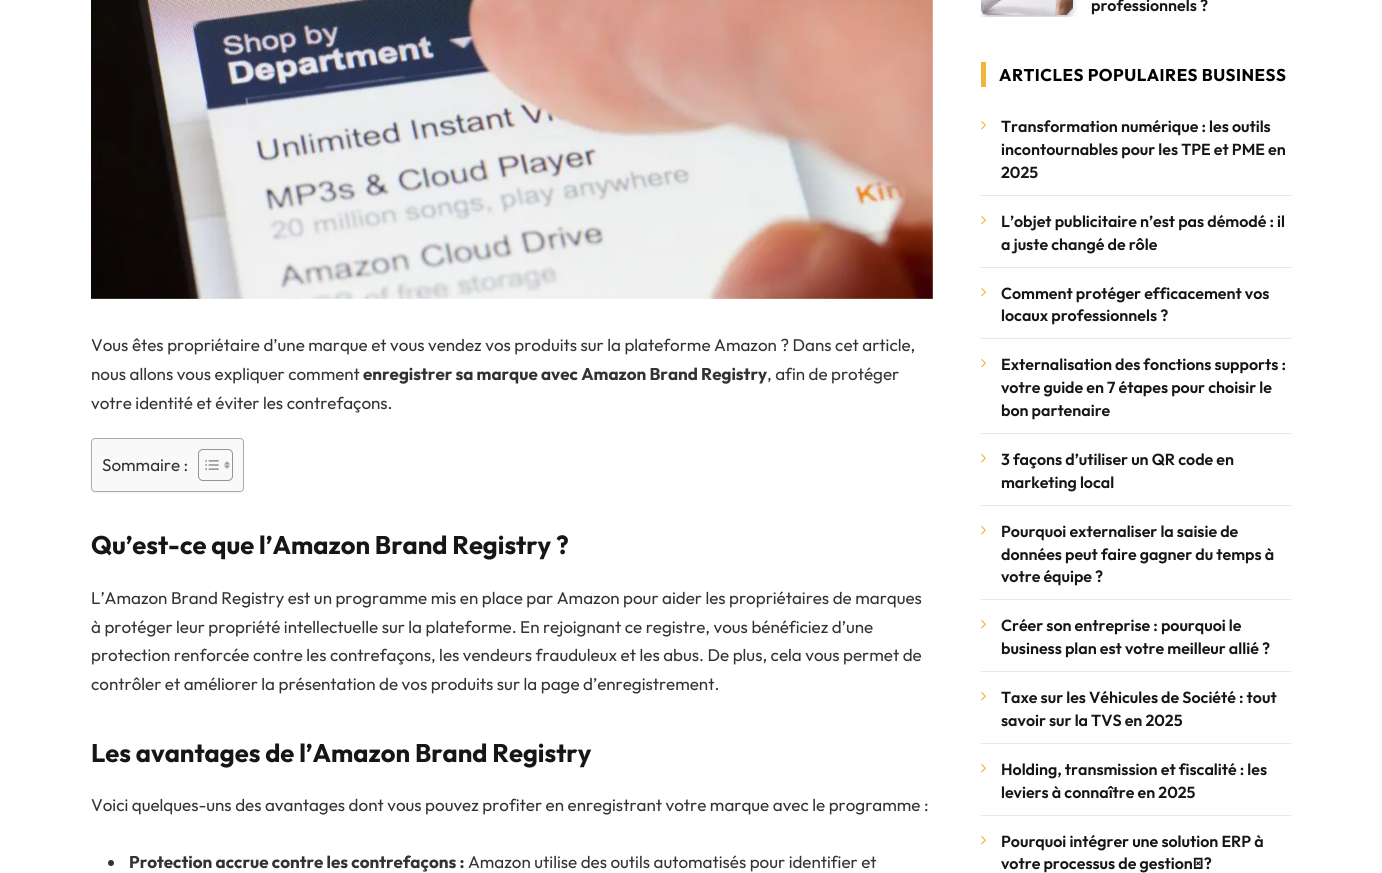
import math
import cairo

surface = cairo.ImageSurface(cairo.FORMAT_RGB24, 1382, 873)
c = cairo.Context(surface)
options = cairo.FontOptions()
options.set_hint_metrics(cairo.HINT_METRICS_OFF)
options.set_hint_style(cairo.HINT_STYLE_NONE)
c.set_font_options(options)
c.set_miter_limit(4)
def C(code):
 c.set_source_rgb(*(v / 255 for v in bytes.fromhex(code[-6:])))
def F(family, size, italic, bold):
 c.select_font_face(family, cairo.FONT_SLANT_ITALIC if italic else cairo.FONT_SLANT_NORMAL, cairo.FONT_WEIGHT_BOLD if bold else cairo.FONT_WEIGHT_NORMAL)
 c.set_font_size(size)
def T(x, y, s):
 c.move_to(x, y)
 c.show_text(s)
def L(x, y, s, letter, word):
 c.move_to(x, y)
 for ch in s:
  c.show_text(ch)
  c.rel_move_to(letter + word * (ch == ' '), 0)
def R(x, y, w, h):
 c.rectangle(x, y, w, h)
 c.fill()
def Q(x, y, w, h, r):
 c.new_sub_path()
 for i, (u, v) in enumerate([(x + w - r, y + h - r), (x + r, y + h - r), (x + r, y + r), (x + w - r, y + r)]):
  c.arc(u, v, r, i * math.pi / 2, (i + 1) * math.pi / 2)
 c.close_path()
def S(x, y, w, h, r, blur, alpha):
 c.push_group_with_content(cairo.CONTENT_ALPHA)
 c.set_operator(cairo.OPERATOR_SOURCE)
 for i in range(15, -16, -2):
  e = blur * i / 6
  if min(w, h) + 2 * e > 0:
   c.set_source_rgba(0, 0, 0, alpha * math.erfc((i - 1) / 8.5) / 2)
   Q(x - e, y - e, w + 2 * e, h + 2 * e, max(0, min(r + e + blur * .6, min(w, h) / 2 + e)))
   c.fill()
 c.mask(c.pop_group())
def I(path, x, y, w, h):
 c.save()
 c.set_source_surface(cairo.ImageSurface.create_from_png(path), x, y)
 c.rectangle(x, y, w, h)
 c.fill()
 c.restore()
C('ffffff')
c.paint()
I('1.png',91,0,842,299)
F('Outfit',17,0,0)
C('333333')
T(91,351,'Vous êtes propriétaire d’une marque et vous vendez vos produits sur la plateforme Amazon ? Dans cet article,')
T(91,380,'nous allons vous expliquer comment')
F('Outfit',17,0,1)
T(363,380,'enregistrer sa marque avec Amazon Brand Registry')
F('Outfit',17,0,0)
T(767,380,', afin de protéger')
T(91,409,'votre identité et éviter les contrefaçons.')
C('000000')
S(91,439,153,54,4,.5,.05)
C('f9f9f9')
Q(91.5,438.5,152,53,3.5)
c.fill_preserve()
C('aaaaaa')
c.set_line_width(1)
c.stroke()
C('333333')
T(102,471,'Sommaire :')
Q(198.5,449.5,34,31,4.5)
C('999191')
c.stroke()
I('2.png',205,460,14,10)
I('3.png',224,461,6,8)
F('Outfit',25.5,0,1)
C('161616')
T(91,554,'Qu’est-ce que l’Amazon Brand Registry ?')
F('Outfit',17,0,0)
C('333333')
T(91,604,'L’Amazon Brand Registry est un programme mis en place par Amazon pour aider les propriétaires de marques')
T(91,633,'à protéger leur propriété intellectuelle sur la plateforme. En rejoignant ce registre, vous bénéficiez d’une')
T(91,661,'protection renforcée contre les contrefaçons, les vendeurs frauduleux et les abus. De plus, cela vous permet de')
T(91,690,'contrôler et améliorer la présentation de vos produits sur la page d’enregistrement.')
F('Outfit',25.5,0,1)
C('161616')
T(91,762,'Les avantages de l’Amazon Brand Registry')
F('Outfit',17,0,0)
C('333333')
T(91,811,'Voici quelques-uns des avantages dont vous pouvez profiter en enregistrant votre marque avec le programme :')
c.new_path()
c.arc(111,863,3,0,2 * math.pi)
c.fill()
F('Outfit',17,0,1)
T(129,868,'Protection accrue contre les contrefaçons :')
F('Outfit',17,0,0)
T(468,868,'Amazon utilise des outils automatisés pour identifier et')
c.save()
c.rectangle(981,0,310,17)
c.clip()
C('070a19')
S(987,-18,80,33,0,6,.2)
S(982,-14,90,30,5,3,.2)
c.restore()
I('4.png',981,0,92,15)
F('Outfit SemiBold',16,0,0)
C('161616')
T(1091,11,'professionnels ?')
C('eeb63d')
R(981,62,5,25)
F('Outfit',17,0,1)
C('000000')
L(999,81,'ARTICLES POPULAIRES BUSINESS',.5,0)
I('5.png',981,121,5,9)
F('Outfit SemiBold',16,0,0)
C('161616')
T(1001,132,'Transformation numérique : les outils')
T(1001,155,'incontournables pour les TPE et PME en')
T(1001,178,'2025')
C('e8e8e8')
R(981,195,310,1)
I('5.png',981,216,5,9)
C('161616')
T(1001,227,'L’objet publicitaire n’est pas démodé : il')
T(1001,250,'a juste changé de rôle')
C('e8e8e8')
R(981,267,310,1)
I('5.png',981,288,5,9)
C('161616')
T(1001,299,'Comment protéger efficacement vos')
T(1001,321,'locaux professionnels ?')
C('e8e8e8')
R(981,338,310,1)
I('5.png',981,359,5,9)
C('161616')
T(1001,370,'Externalisation des fonctions supports :')
T(1001,393,'votre guide en 7 étapes pour choisir le')
T(1001,416,'bon partenaire')
C('e8e8e8')
R(981,433,310,1)
I('5.png',981,454,5,9)
C('161616')
T(1001,465,'3 façons d’utiliser un QR code en')
T(1001,488,'marketing local')
C('e8e8e8')
R(981,505,310,1)
I('5.png',981,526,5,9)
C('161616')
T(1001,537,'Pourquoi externaliser la saisie de')
T(1001,560,'données peut faire gagner du temps à')
T(1001,582,'votre équipe ?')
C('e8e8e8')
R(981,599,310,1)
I('5.png',981,620,5,9)
C('161616')
T(1001,631,'Créer son entreprise : pourquoi le')
T(1001,654,'business plan est votre meilleur allié ?')
C('e8e8e8')
R(981,671,310,1)
I('5.png',981,692,5,9)
C('161616')
T(1001,703,'Taxe sur les Véhicules de Société : tout')
T(1001,726,'savoir sur la TVS en 2025')
C('e8e8e8')
R(981,743,310,1)
I('5.png',981,764,5,9)
C('161616')
T(1001,775,'Holding, transmission et fiscalité : les')
T(1001,798,'leviers à connaître en 2025')
C('e8e8e8')
R(981,815,310,1)
I('5.png',981,836,5,9)
C('161616')
T(1001,847,'Pourquoi intégrer une solution ERP à')
T(1001,869,'votre processus de gestion ?')
surface.write_to_png('o.png')
